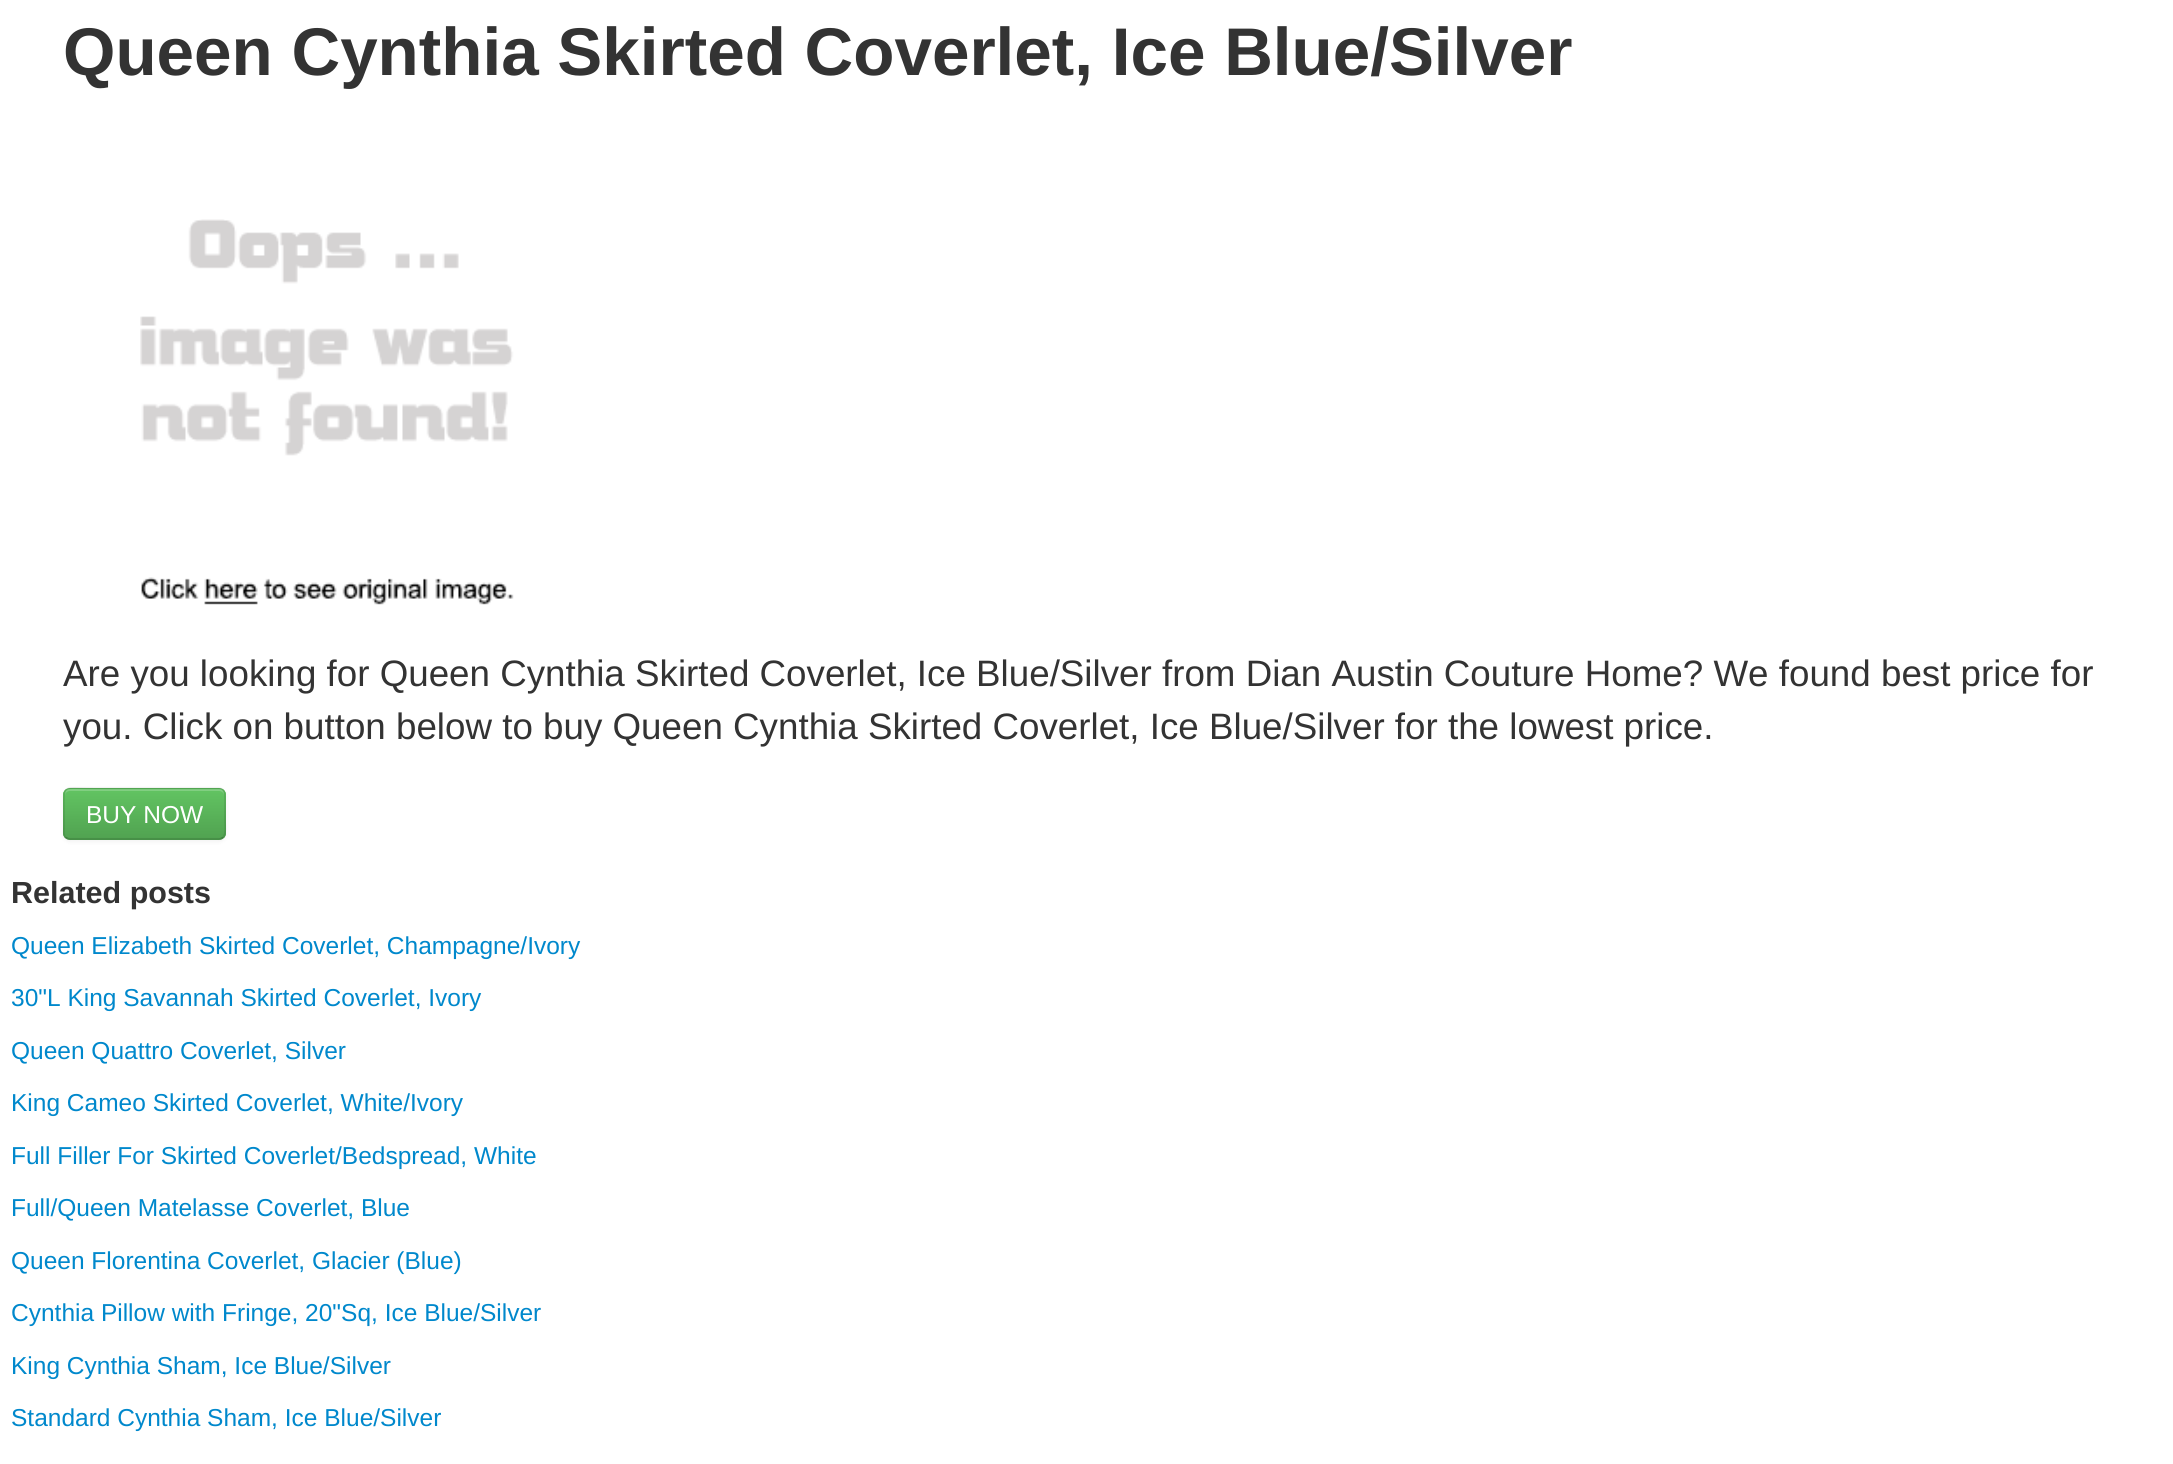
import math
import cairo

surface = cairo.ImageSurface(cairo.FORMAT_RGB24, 2173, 1464)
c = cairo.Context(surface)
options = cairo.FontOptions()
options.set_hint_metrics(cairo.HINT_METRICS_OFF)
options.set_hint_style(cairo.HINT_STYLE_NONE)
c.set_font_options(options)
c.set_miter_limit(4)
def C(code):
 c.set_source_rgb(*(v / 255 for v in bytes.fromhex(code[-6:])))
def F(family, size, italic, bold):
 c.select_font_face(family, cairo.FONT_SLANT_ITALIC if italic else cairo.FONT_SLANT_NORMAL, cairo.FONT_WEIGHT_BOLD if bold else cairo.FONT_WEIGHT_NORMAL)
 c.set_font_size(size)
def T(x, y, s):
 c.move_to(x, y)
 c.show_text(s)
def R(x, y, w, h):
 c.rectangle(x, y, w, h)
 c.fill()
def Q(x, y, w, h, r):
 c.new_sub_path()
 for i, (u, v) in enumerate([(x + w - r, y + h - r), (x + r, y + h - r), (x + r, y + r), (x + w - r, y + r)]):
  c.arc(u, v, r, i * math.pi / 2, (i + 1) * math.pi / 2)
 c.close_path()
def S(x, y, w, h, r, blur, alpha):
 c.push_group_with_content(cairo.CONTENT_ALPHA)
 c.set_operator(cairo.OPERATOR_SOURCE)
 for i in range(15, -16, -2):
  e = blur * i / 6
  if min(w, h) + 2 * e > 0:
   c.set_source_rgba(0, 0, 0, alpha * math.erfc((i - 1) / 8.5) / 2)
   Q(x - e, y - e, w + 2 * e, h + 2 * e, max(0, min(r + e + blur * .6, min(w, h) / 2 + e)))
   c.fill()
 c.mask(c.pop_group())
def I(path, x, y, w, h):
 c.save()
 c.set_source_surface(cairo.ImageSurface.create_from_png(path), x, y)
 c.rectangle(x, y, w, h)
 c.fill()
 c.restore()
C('ffffff')
c.paint()
F('Liberation Sans',67.4,0,1)
C('333333')
T(63,75,'Queen Cynthia Skirted Coverlet, Ice Blue/Silver')
I('1.png',140,219,374,386)
F('Liberation Sans',36.75,0,0)
T(63,686,'Are you looking for Queen Cynthia Skirted Coverlet, Ice Blue/Silver from Dian Austin Couture Home? We found best price for')
T(63,739,'you. Click on button below to buy Queen Cynthia Skirted Coverlet, Ice Blue/Silver for the lowest price.')
C('000000')
S(63,789,163,53,7,2,.05)
C('5bb75b')
Q(63,788,163,52,7)
c.fill()
c.save()
Q(63,788,163,52,7)
c.clip()
gradient = cairo.LinearGradient(144,789,144,838)
gradient.add_color_stop_rgba(0,0.384,0.769,0.384,1)
gradient.add_color_stop_rgba(1,0.318,0.639,0.318,1)
c.set_source(gradient)
R(63,789,163,49)
c.restore()
c.set_source_rgba(1,1,1,0.2)
c.new_path()
c.move_to(70,791)
c.line_to(219,791)
c.curve_to(222,791,224,793,224,796)
c.line_to(224,794)
c.curve_to(224,791,222,789,219,789)
c.line_to(70,789)
c.curve_to(67,789,65,791,65,794)
c.line_to(65,796)
c.curve_to(65,793,67,791,70,791)
c.close_path()
c.fill()
c.new_path()
c.move_to(223,837.5)
c.curve_to(222,838.5,220.5,839,219,839)
c.line_to(70,839)
c.curve_to(68.5,839,67,838.5,65.5,837.5)
c.set_source_rgba(0,0,0,0.25)
c.set_line_width(1.8)
c.stroke()
c.new_path()
c.move_to(65.5,837.5)
c.curve_to(63,834.5,64,830,64,826.5)
c.line_to(64,814)
c.curve_to(64,782.5,60.5,788.5,95,788.5)
c.line_to(219,788.5)
c.curve_to(225.5,788.5,225,796,225,801)
c.line_to(225,820)
c.curve_to(225,824,226.5,834,223,837.5)
c.set_source_rgba(0,0,0,0.1)
c.stroke()
F('Liberation Sans',24.5,0,0)
C('ffffff')
T(86,823,'BUY NOW')
F('Liberation Sans',30.5,0,1)
C('333333')
T(11,903,'Related posts')
F('Liberation Sans',24.5,0,0)
C('0088cc')
T(11,954,'Queen Elizabeth Skirted Coverlet, Champagne/Ivory')
T(11,1006,'30"L King Savannah Skirted Coverlet, Ivory')
T(11,1059,'Queen Quattro Coverlet, Silver')
T(11,1111,'King Cameo Skirted Coverlet, White/Ivory')
T(11,1164,'Full Filler For Skirted Coverlet/Bedspread, White')
T(11,1216,'Full/Queen Matelasse Coverlet, Blue')
T(11,1269,'Queen Florentina Coverlet, Glacier (Blue)')
T(11,1321,'Cynthia Pillow with Fringe, 20"Sq, Ice Blue/Silver')
T(11,1374,'King Cynthia Sham, Ice Blue/Silver')
T(11,1426,'Standard Cynthia Sham, Ice Blue/Silver')
surface.write_to_png('o.png')
